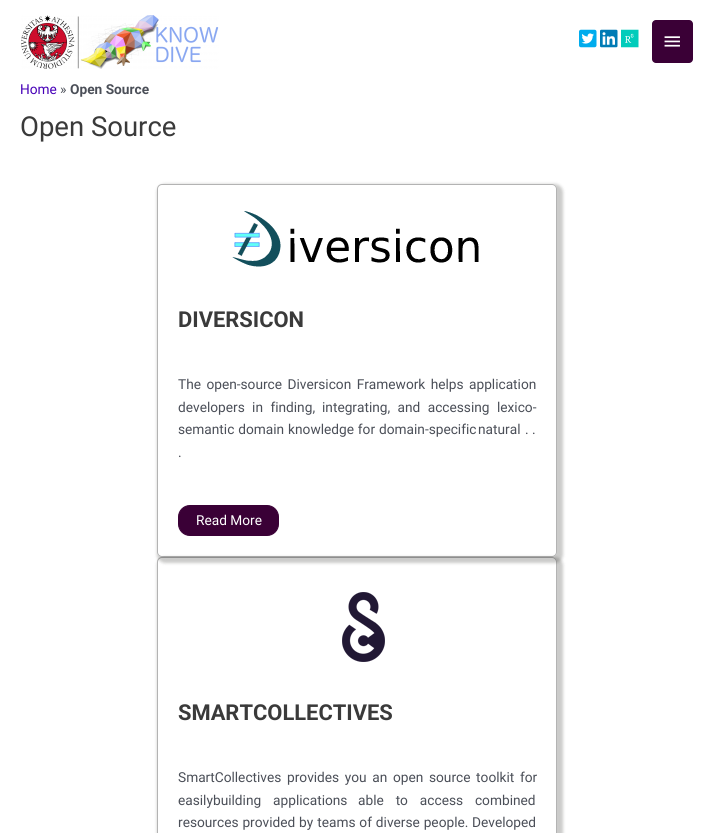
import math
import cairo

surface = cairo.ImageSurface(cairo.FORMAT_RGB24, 713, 833)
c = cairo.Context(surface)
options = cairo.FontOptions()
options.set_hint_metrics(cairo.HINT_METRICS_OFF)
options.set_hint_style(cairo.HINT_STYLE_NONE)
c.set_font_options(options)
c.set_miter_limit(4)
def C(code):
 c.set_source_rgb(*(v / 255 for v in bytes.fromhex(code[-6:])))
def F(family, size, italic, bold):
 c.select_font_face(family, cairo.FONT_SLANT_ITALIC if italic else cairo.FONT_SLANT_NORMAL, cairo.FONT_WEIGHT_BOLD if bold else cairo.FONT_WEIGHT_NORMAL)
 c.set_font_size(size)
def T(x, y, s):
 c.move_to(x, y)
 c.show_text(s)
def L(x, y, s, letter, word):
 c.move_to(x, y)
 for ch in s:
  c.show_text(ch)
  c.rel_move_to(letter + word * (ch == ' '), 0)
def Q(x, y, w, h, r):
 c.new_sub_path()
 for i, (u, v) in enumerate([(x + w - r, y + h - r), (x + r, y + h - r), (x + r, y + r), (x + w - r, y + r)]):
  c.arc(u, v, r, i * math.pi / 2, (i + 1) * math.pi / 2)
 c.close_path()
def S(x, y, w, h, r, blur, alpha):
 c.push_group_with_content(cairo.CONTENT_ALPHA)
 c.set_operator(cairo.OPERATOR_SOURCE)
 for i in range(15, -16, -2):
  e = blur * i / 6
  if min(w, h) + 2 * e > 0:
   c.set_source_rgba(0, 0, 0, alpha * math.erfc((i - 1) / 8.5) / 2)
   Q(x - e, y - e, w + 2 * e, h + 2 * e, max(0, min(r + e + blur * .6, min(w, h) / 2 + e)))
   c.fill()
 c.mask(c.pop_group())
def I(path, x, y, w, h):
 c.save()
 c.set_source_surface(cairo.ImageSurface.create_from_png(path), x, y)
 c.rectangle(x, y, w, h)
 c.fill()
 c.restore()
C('ffffff')
c.paint()
I('1.png',21,15,198,54)
I('2.png',579,29,18,19)
I('3.png',600,29,18,19)
I('4.png',621,29,18,19)
C('3a0036')
Q(652,20,41,43,4)
c.fill()
I('5.png',664,36,16,11)
F('Roboto',13.7,0,0)
C('4600b7')
T(20,94,'Home')
C('4b4f58')
T(60,94,'»')
F('Roboto',13.7,0,1)
T(70,94,'Open Source')
F('Roboto',27.5,0,0)
C('3a3a3a')
T(20,136,'Open Source')
c.save()
c.set_fill_rule(cairo.FILL_RULE_EVEN_ODD)
c.new_path()
c.move_to(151,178)
c.line_to(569,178)
c.line_to(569,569)
c.line_to(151,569)
c.close_path()
c.move_to(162,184)
c.line_to(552,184)
c.curve_to(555,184,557,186,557,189)
c.line_to(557,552)
c.curve_to(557,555,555,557,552,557)
c.line_to(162,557)
c.curve_to(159,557,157,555,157,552)
c.line_to(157,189)
c.curve_to(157,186,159,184,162,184)
c.close_path()
c.clip()
C('070700')
S(157,184,406,379,8,1.5,.21)
c.restore()
Q(157.5,184.5,399,372,4.5)
c.set_source_rgba(0,0,0,0.3)
c.set_line_width(1)
c.stroke()
I('6.png',232,211,247,56)
F('Roboto',21.9,0,1)
C('3a3a3a')
T(178,327,'DIVERSICON')
F('Roboto',13.7,0,0)
C('4b4f58')
L(178,389,'The open-source Diversicon Framework helps application',0,2)
L(178,412,'developers in finding,',0,4)
L(322,412,'integrating, and accessing lexico-',0,4)
L(178,434,'semantic domain knowledge for domain-specific',0,.5)
T(478,434,'natural')
T(525,434,'. .')
T(178,457,'.')
C('3a0036')
Q(178.5,505.5,100,30,11.5)
c.fill_preserve()
c.stroke()
C('ffffff')
T(196,525,'Read More')
c.save()
c.set_fill_rule(cairo.FILL_RULE_EVEN_ODD)
c.new_path()
c.move_to(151,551)
c.line_to(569,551)
c.line_to(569,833)
c.line_to(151,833)
c.close_path()
c.move_to(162,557)
c.line_to(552,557)
c.curve_to(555,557,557,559,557,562)
c.line_to(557,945)
c.curve_to(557,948,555,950,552,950)
c.line_to(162,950)
c.curve_to(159,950,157,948,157,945)
c.line_to(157,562)
c.curve_to(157,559,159,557,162,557)
c.close_path()
c.clip()
C('070700')
S(157,557,406,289,8,1.5,.21)
c.restore()
Q(157.5,557.5,399,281,4.5)
c.set_source_rgba(0,0,0,0.3)
c.stroke()
I('7.png',342,592,43,70)
F('Roboto',21.9,0,1)
C('3a3a3a')
T(178,720,'SMARTCOLLECTIVES')
F('Roboto',13.7,0,0)
C('4b4f58')
L(178,782,'SmartCollectives provides you an open source toolkit for',0,2.25)
L(178,805,'easilybuilding applications',0,8.5)
L(358,805,'able to access combined',0,8.5)
L(178,827,'resources provided by teams of diverse people.',0,.5)
T(472,827,'Developed')
surface.write_to_png('o.png')
